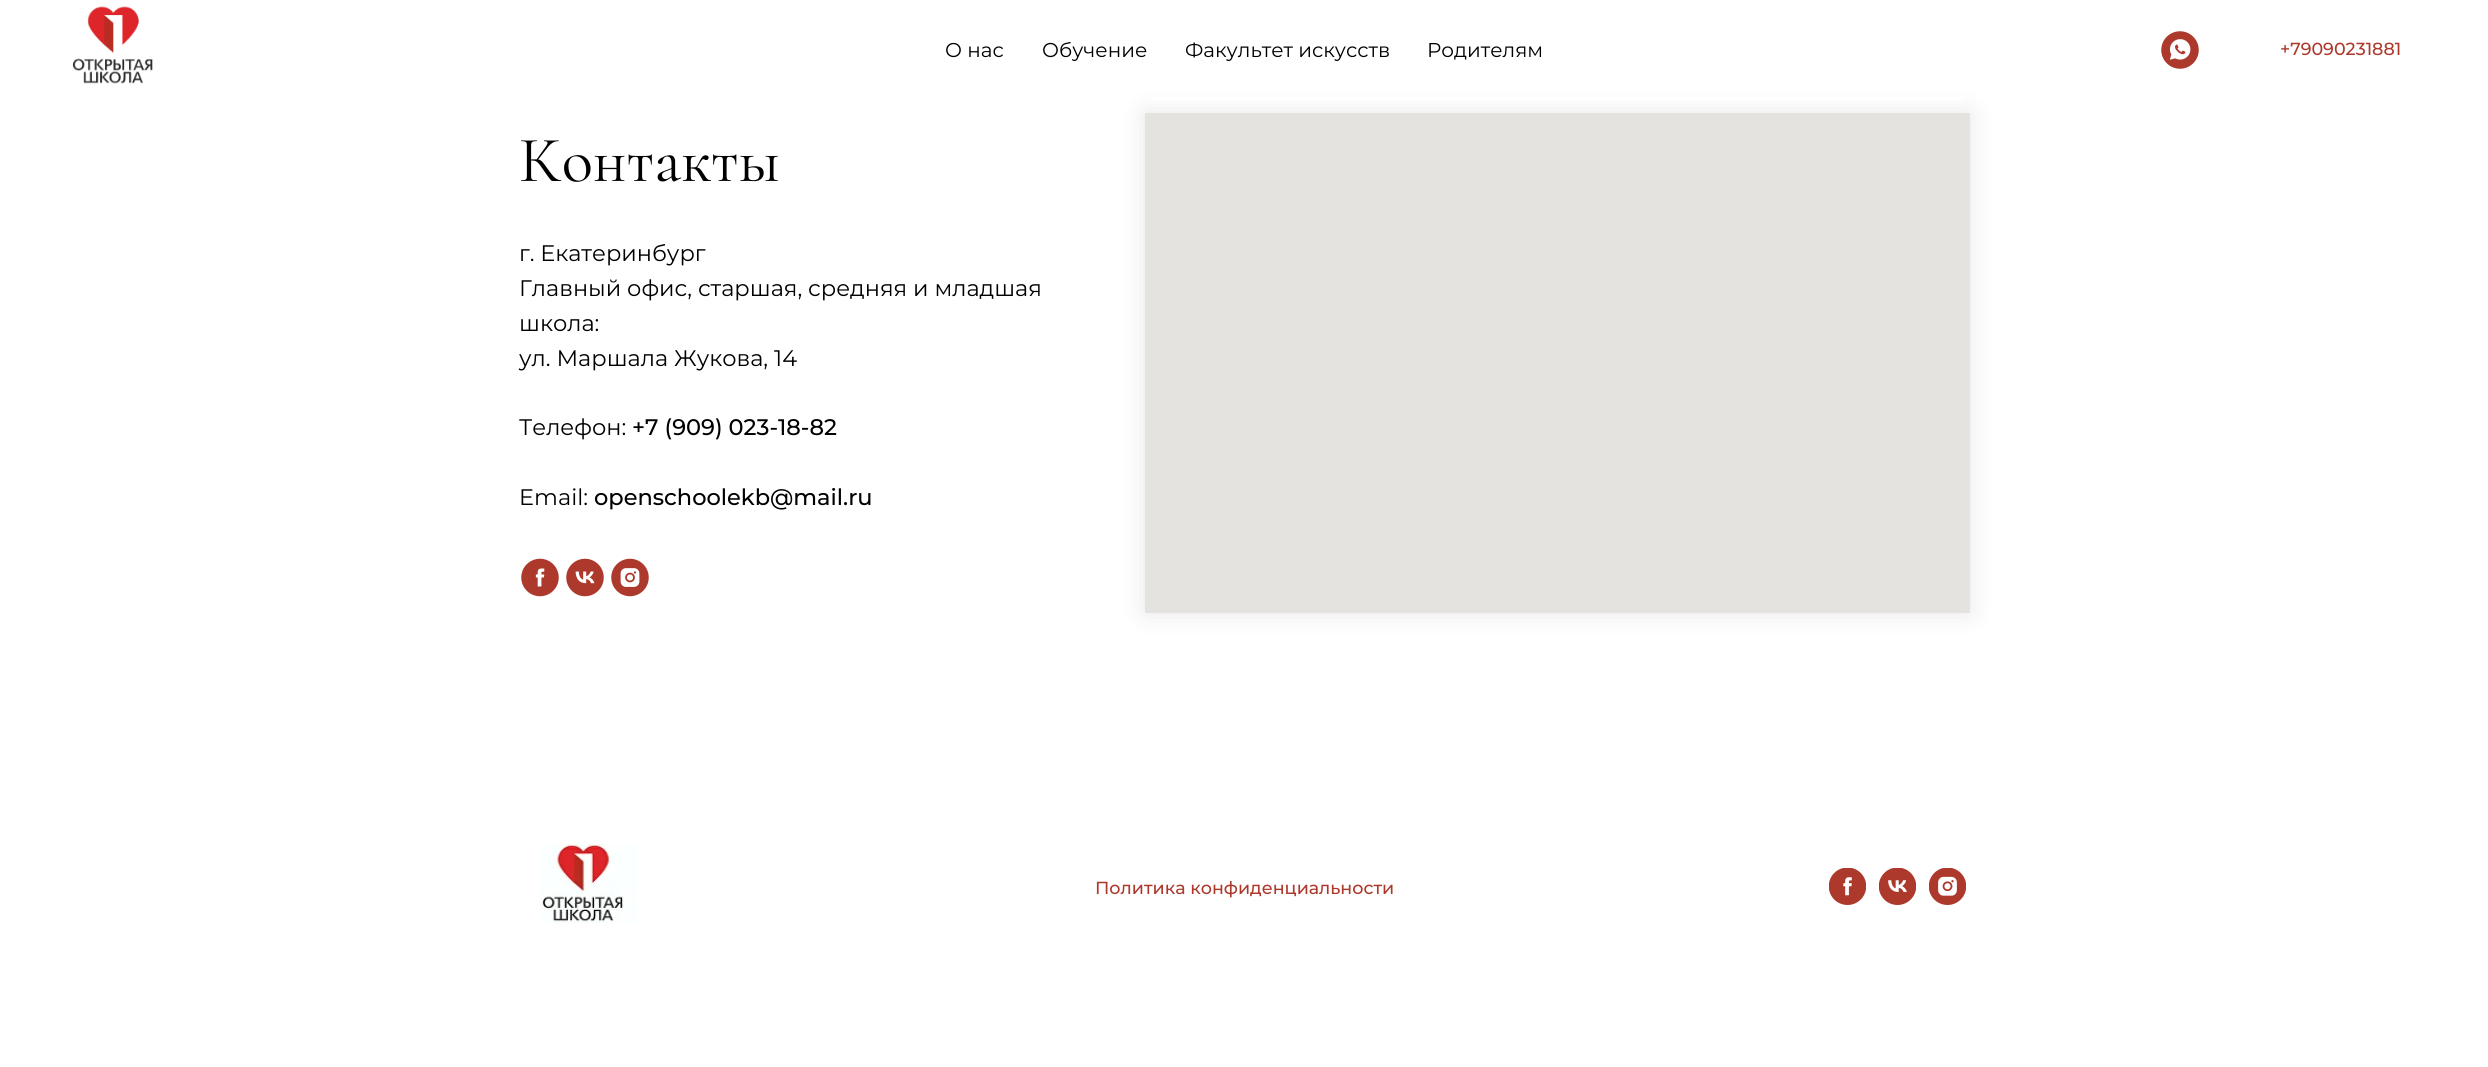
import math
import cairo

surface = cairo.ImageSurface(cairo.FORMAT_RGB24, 2488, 1067)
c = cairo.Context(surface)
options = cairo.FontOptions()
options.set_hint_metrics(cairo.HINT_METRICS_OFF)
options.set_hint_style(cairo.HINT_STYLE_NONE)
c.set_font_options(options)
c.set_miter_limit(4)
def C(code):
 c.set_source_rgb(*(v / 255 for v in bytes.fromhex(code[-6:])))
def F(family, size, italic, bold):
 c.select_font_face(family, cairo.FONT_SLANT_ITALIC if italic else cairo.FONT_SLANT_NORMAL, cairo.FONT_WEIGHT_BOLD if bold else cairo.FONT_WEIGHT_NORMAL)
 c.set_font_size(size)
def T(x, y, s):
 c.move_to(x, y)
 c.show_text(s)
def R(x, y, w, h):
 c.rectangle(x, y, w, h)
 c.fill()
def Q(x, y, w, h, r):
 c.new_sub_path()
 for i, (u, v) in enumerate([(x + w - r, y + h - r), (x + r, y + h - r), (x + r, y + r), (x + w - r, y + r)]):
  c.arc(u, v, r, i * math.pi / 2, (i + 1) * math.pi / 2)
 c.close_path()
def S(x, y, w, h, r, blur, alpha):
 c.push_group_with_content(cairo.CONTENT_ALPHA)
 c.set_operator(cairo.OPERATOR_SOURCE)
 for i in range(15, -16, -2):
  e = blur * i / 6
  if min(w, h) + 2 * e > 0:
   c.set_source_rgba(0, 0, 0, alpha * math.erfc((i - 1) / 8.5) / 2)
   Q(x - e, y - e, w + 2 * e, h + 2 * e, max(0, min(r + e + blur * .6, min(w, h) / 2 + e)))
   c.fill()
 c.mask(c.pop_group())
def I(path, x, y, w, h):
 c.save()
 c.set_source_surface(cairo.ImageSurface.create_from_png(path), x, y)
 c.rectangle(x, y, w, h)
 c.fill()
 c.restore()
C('ffffff')
c.paint()
C('000000')
S(1145,113,825,500,0,12.5,.1)
C('ffffff')
R(1152,97,811,3)
I('1.png',72,6,81,78)
F('Montserrat',20,0,0)
C('000000')
T(945,57,'О нас')
T(1042,57,'Обучение')
T(1185,57,'Факультет искусств')
T(1427,57,'Родителям')
I('2.png',2161,31,38,38)
F('Montserrat Medium',17.5,0,0)
C('ac392c')
T(2280,55,'+79090231881')
F('Cormorant Garamond',65,0,0)
C('000000')
T(519,181,'Контакты')
F('Montserrat',22.5,0,0)
T(519,261,'г. Екатеринбург')
T(519,296,'Главный офис, старшая, средняя и младшая')
T(519,331,'школа:')
T(519,366,'ул. Маршала Жукова, 14')
T(519,435,'Телефон:')
F('Montserrat Medium',22.5,0,0)
T(632,435,'+7 (909) 023-18-82')
F('Montserrat',22.5,0,0)
T(519,505,'Email:')
F('Montserrat Medium',22.5,0,0)
T(594,505,'openschoolekb@mail.ru')
I('3.png',521,558,38,39)
I('4.png',566,558,38,39)
I('5.png',611,558,38,39)
C('e5e3df')
R(1145,113,825,500)
I('6.png',540,844,97,79)
F('Montserrat Medium',17.5,0,0)
C('ac392c')
T(1095,894,'Политика конфиденциальности')
I('7.png',1829,868,37,37)
I('8.png',1879,868,37,37)
I('9.png',1929,868,37,37)
surface.write_to_png('o.png')
